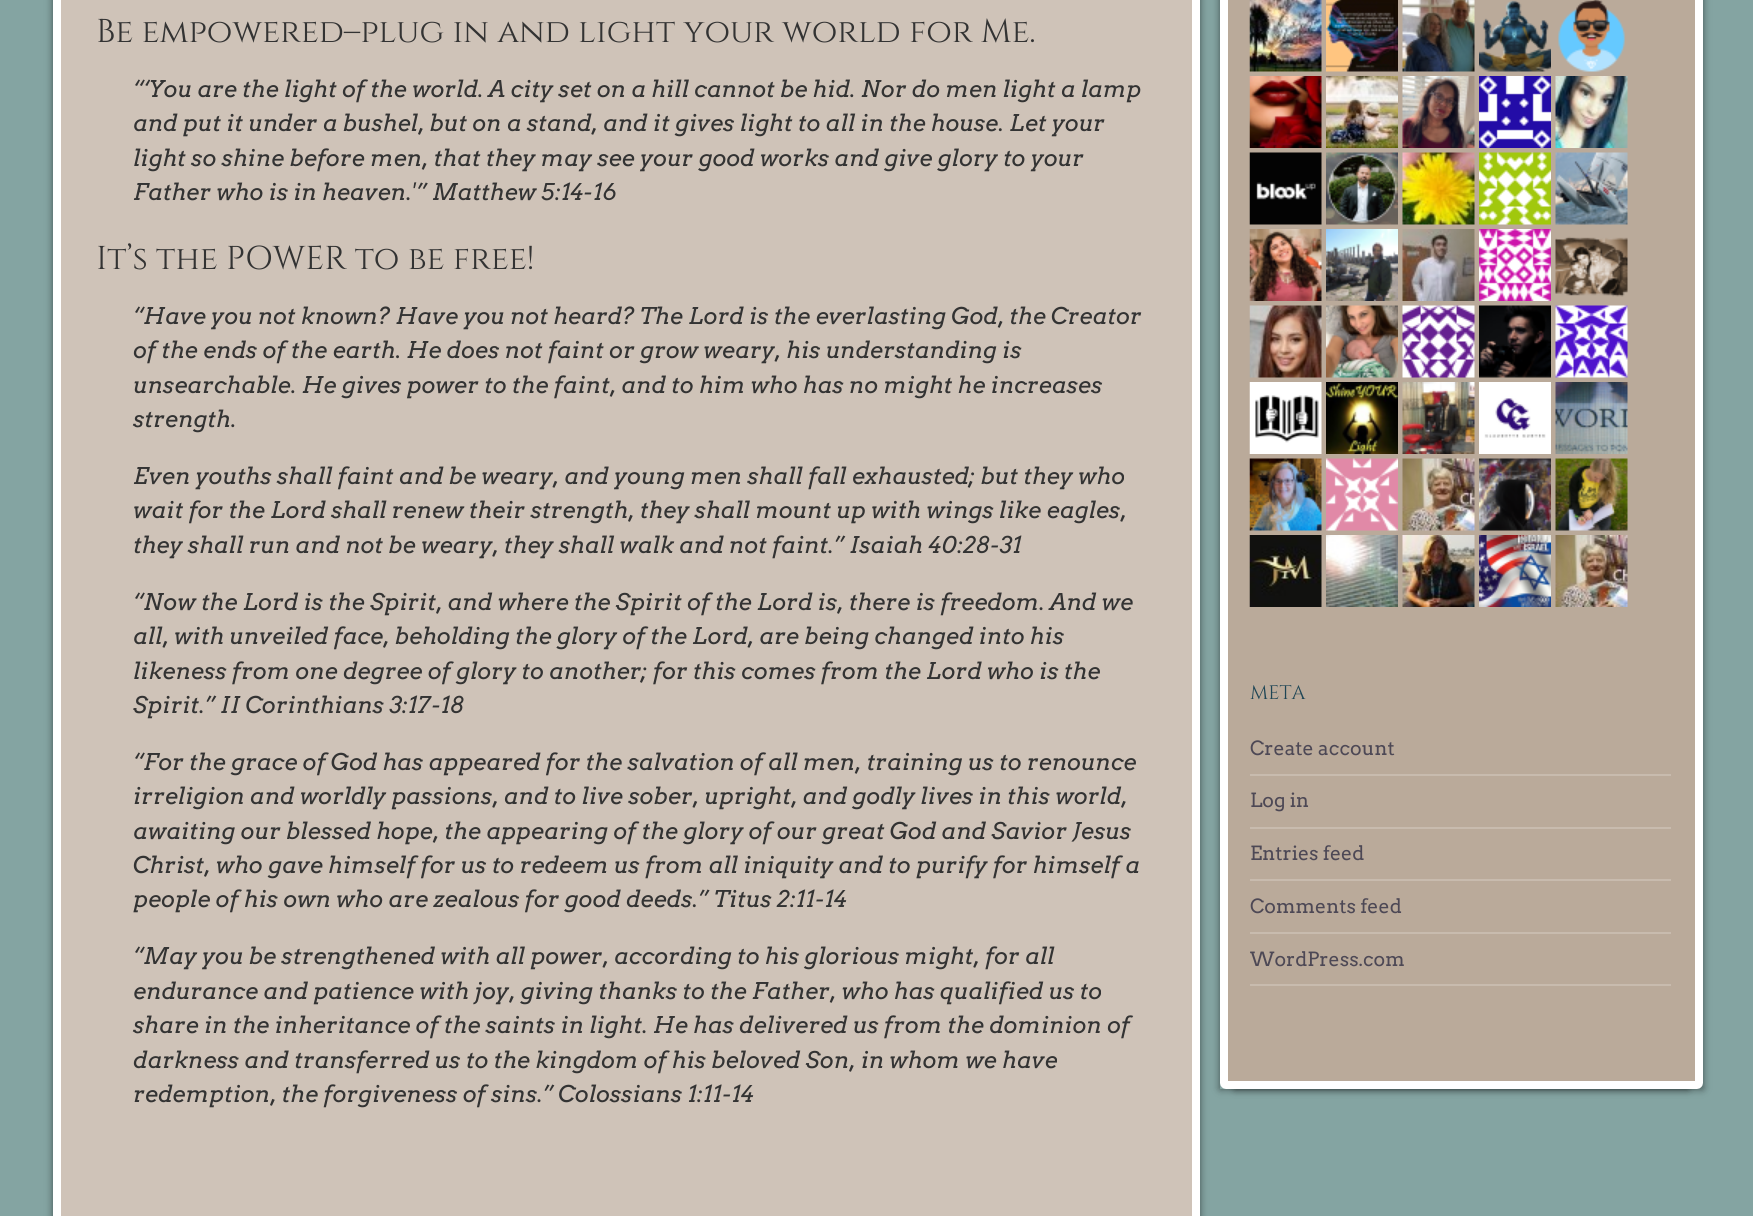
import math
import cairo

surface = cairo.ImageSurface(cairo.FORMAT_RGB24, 1753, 1216)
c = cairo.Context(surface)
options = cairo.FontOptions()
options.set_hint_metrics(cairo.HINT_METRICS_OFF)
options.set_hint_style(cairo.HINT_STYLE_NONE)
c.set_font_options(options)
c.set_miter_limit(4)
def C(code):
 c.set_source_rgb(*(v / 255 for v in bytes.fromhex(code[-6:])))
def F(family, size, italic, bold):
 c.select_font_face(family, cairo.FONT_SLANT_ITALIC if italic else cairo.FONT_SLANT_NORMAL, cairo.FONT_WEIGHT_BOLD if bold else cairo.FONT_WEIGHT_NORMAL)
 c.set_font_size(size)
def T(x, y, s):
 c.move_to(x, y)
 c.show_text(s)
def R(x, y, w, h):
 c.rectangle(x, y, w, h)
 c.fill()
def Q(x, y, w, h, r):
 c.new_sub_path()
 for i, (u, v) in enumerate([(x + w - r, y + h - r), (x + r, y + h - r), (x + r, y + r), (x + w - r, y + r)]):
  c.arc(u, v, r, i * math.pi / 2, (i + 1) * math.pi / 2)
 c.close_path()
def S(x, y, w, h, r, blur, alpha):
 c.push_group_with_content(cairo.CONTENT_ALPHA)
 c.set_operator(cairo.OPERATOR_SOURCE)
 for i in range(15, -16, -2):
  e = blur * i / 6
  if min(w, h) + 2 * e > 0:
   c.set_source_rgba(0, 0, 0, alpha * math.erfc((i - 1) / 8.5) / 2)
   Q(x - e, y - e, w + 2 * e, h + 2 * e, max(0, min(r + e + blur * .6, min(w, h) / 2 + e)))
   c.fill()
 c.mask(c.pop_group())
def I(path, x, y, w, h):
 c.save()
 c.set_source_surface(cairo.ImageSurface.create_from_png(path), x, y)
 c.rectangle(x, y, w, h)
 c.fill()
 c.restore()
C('84a4a2')
c.paint()
C('000000')
S(53,-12,1132,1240,0,4,.5)
S(68,-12,1132,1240,0,4,.5)
C('cfc3b8')
c.rectangle(57,-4,1139,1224)
c.fill_preserve()
C('ffffff')
c.set_line_width(8)
c.stroke()
F('Cinzel',33,0,0)
C('333333')
T(96,42,'Be empowered–plug in and light your world for Me.')
F('Arvo',22.95,1,0)
T(133,97,'“‘You are the light of the world. A city set on a hill cannot be hid. Nor do men light a lamp')
T(133,131,'and put it under a bushel, but on a stand, and it gives light to all in the house. Let your')
T(133,166,'light so shine before men, that they may see your good works and give glory to your')
T(133,200,'Father who is in heaven.\'” Matthew 5:14-16')
F('Cinzel',33,0,0)
T(96,269,'It’s the POWER to be free!')
F('Arvo',22.95,1,0)
T(133,324,'“Have you not known? Have you not heard? The Lord is the everlasting God, the Creator')
T(133,358,'of the ends of the earth. He does not faint or grow weary, his understanding is')
T(133,393,'unsearchable. He gives power to the faint, and to him who has no might he increases')
T(133,427,'strength.')
T(133,484,'Even youths shall faint and be weary, and young men shall fall exhausted; but they who')
T(133,518,'wait for the Lord shall renew their strength, they shall mount up with wings like eagles,')
T(133,553,'they shall run and not be weary, they shall walk and not faint.” Isaiah 40:28-31')
T(133,610,'“Now the Lord is the Spirit, and where the Spirit of the Lord is, there is freedom. And we')
T(133,644,'all, with unveiled face, beholding the glory of the Lord, are being changed into his')
T(133,679,'likeness from one degree of glory to another; for this comes from the Lord who is the')
T(133,713,'Spirit.” II Corinthians 3:17-18')
T(133,770,'“For the grace of God has appeared for the salvation of all men, training us to renounce')
T(133,804,'irreligion and worldly passions, and to live sober, upright, and godly lives in this world,')
T(133,839,'awaiting our blessed hope, the appearing of the glory of our great God and Savior Jesus')
T(133,873,'Christ, who gave himself for us to redeem us from all iniquity and to purify for himself a')
T(133,907,'people of his own who are zealous for good deeds.” Titus 2:11-14')
T(133,964,'“May you be strengthened with all power, according to his glorious might, for all')
T(133,999,'endurance and patience with joy, giving thanks to the Father, who has qualified us to')
T(133,1033,'share in the inheritance of the saints in light. He has delivered us from the dominion of')
T(133,1068,'darkness and transferred us to the kingdom of his beloved Son, in whom we have')
T(133,1102,'redemption, the forgiveness of sins.” Colossians 1:11-14')
c.save()
c.set_fill_rule(cairo.FILL_RULE_EVEN_ODD)
c.new_path()
c.move_to(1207,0)
c.line_to(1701,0)
c.line_to(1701,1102)
c.line_to(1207,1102)
c.close_path()
c.move_to(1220,-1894)
c.line_to(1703,-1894)
c.line_to(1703,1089)
c.line_to(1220,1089)
c.close_path()
c.clip()
C('000000')
S(1220,-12,468,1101,0,4,.5)
c.restore()
C('000000')
S(1235,-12,468,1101,0,4,.5)
C('baaa9a')
c.new_path()
c.move_to(1224,-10)
c.line_to(1699,-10)
c.line_to(1699,1083)
c.curve_to(1699,1084,1698,1085,1697,1085)
c.line_to(1226,1085)
c.curve_to(1225,1085,1224,1084,1224,1083)
c.close_path()
c.fill_preserve()
C('ffffff')
c.stroke()
I('1.png',1249,0,73,72)
I('2.png',1326,0,72,72)
I('3.png',1402,0,73,72)
I('4.png',1479,0,72,72)
I('5.png',1558,0,67,72)
I('6.png',1249,76,73,72)
I('7.png',1326,76,72,72)
I('8.png',1402,76,73,72)
I('9.png',1479,76,72,72)
I('10.png',1555,76,73,72)
I('11.png',1249,152,73,73)
I('12.png',1326,152,72,73)
I('13.png',1402,152,73,73)
I('14.png',1479,152,72,73)
I('15.png',1555,152,73,73)
I('16.png',1249,229,73,72)
I('17.png',1326,229,72,72)
I('18.png',1402,229,73,72)
I('19.png',1479,229,72,72)
I('20.png',1555,236,73,61)
I('21.png',1249,305,73,73)
I('22.png',1326,305,72,73)
I('23.png',1402,305,73,73)
I('24.png',1479,305,72,73)
I('25.png',1555,305,73,73)
I('26.png',1249,382,73,72)
I('27.png',1326,382,72,72)
I('28.png',1402,382,73,72)
I('29.png',1479,382,72,72)
I('30.png',1555,382,73,72)
I('31.png',1249,458,73,73)
I('32.png',1326,458,72,73)
I('33.png',1402,458,73,73)
I('34.png',1479,458,72,73)
I('35.png',1555,458,73,73)
I('36.png',1249,535,73,72)
I('37.png',1326,535,72,72)
I('38.png',1402,535,73,72)
I('39.png',1479,535,72,72)
I('40.png',1555,535,73,72)
F('Cinzel',19.5,0,0)
C('1e4555')
T(1250,699,'META')
C('c8bbae')
R(1250,774,421,2)
F('Arvo',19.5,0,0)
C('4d4855')
T(1250,755,'Create account')
C('c8bbae')
R(1250,827,421,2)
C('4d4855')
T(1250,807,'Log in')
C('c8bbae')
R(1250,879,421,2)
C('4d4855')
T(1250,860,'Entries feed')
C('c8bbae')
R(1250,932,421,2)
C('4d4855')
T(1250,913,'Comments feed')
C('c8bbae')
R(1250,984,421,2)
C('4d4855')
T(1250,966,'WordPress.com')
surface.write_to_png('o.png')
